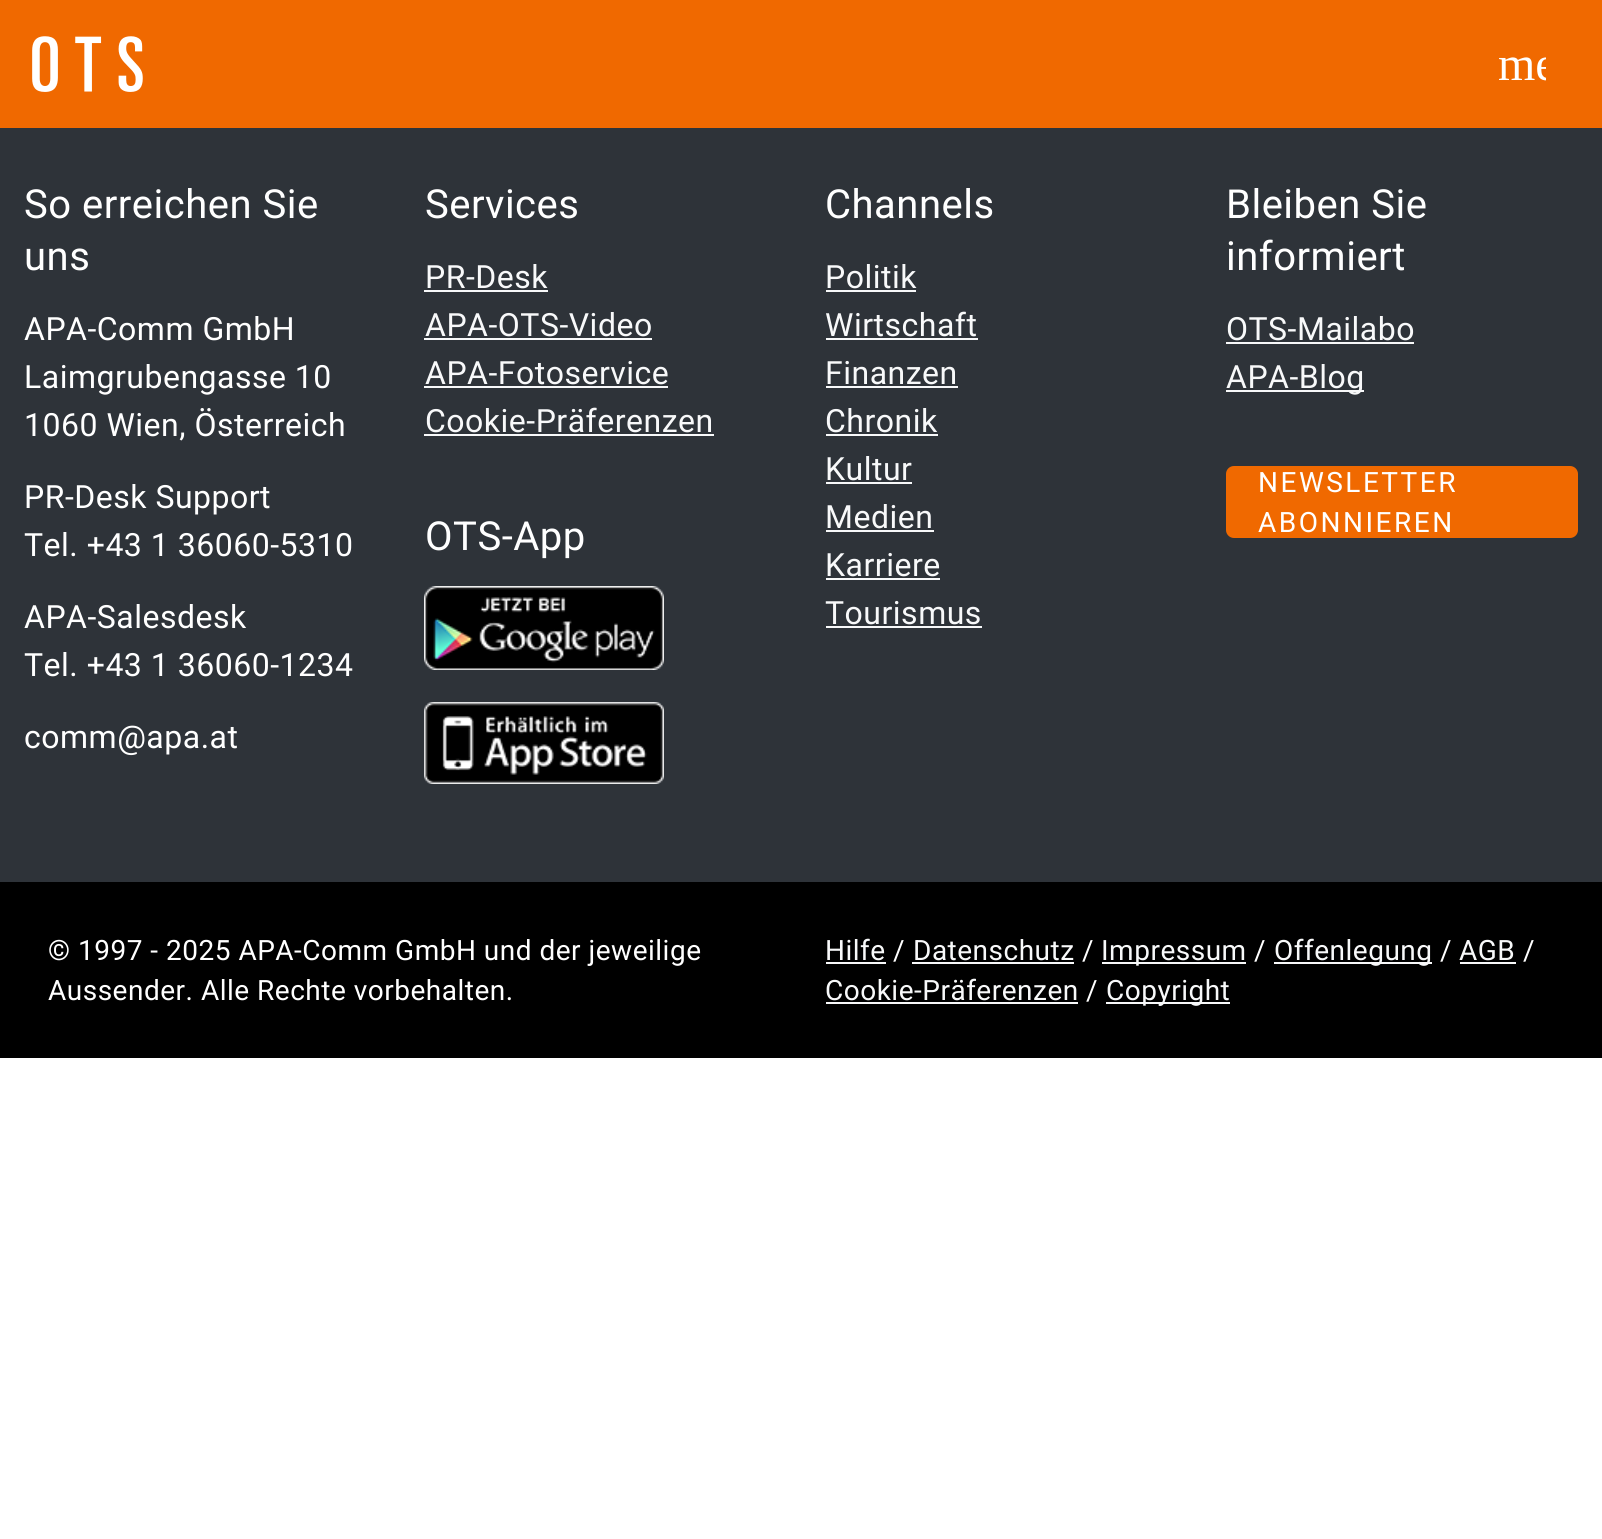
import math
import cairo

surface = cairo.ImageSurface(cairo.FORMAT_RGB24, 1602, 1539)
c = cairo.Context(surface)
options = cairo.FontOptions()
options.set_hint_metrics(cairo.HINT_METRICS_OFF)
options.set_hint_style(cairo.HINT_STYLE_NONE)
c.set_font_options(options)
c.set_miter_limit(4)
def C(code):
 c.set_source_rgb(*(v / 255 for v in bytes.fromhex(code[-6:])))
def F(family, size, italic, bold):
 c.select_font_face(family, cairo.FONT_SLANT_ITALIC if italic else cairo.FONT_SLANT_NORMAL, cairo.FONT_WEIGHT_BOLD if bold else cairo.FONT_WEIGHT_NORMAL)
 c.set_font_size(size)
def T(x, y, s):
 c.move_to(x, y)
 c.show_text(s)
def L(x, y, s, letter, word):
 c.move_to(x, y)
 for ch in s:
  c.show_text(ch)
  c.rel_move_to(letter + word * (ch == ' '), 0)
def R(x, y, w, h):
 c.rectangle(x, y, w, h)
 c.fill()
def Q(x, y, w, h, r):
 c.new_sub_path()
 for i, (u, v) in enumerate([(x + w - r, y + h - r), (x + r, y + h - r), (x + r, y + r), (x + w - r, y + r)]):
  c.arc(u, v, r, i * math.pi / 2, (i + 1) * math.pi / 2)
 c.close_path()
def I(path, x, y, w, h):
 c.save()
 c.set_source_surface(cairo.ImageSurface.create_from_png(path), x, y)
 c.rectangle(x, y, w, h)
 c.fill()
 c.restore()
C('ffffff')
c.paint()
C('f06900')
R(0,0,1602,128)
I('1.png',32,36,111,56)
c.save()
c.rectangle(1498,40,48,48)
c.clip()
F('Liberation Serif',48,0,0)
C('ffffff')
T(1498,80,'me')
c.restore()
C('2e3339')
R(0,128,1602,754)
F('Roboto',40,0,0)
C('ffffff')
L(24,218,'So erreichen Sie',.5,0)
L(24,270,'uns',.5,0)
F('Roboto',32,0,0)
L(24,340,'APA-Comm GmbH',.5,0)
L(24,388,'Laimgrubengasse 10',.5,0)
L(24,436,'1060 Wien, Österreich',.5,0)
L(24,508,'PR-Desk Support',.5,0)
L(24,556,'Tel. +43 1 36060-5310',.5,0)
L(24,628,'APA-Salesdesk',.5,0)
L(24,676,'Tel. +43 1 36060-1234',.5,0)
L(24,748,'comm@apa.at',.5,0)
F('Roboto',40,0,0)
L(425,218,'Services',.5,0)
F('Roboto',32,0,0)
C('f8f9fa')
L(425,288,'PR-Desk',.5,0)
R(424,290,124,2)
L(425,336,'APA-OTS-Video',.5,0)
R(424,338,228,2)
L(425,384,'APA-Fotoservice',.5,0)
R(424,386,244,2)
L(425,432,'Cookie-Präferenzen',.5,0)
R(424,434,290,2)
F('Roboto',40,0,0)
C('ffffff')
L(425,550,'OTS-App',.5,0)
I('2.png',424,586,240,84)
I('3.png',424,702,240,82)
L(825,218,'Channels',.5,0)
F('Roboto',32,0,0)
C('f8f9fa')
L(825,288,'Politik',.5,0)
R(826,290,90,2)
L(825,336,'Wirtschaft',.5,0)
R(826,338,152,2)
L(825,384,'Finanzen',.5,0)
R(826,386,132,2)
L(825,432,'Chronik',.5,0)
R(826,434,112,2)
L(825,480,'Kultur',.5,0)
R(826,482,86,2)
L(825,528,'Medien',.5,0)
R(826,530,108,2)
L(825,576,'Karriere',.5,0)
R(826,578,114,2)
L(825,624,'Tourismus',.5,0)
R(826,626,156,2)
F('Roboto',40,0,0)
C('ffffff')
L(1226,218,'Bleiben Sie',.5,0)
L(1226,270,'informiert',.5,0)
F('Roboto',32,0,0)
C('f8f9fa')
L(1226,340,'OTS-Mailabo',.5,0)
R(1226,342,188,2)
R(1226,390,138,2)
L(1226,388,'APA-Blog',.5,0)
C('f06900')
Q(1226,466,352,72,8)
c.fill()
F('Roboto',28,0,0)
C('ffffff')
L(1258,492,'NEWSLETTER',2.5,0)
L(1258,532,'ABONNIEREN',2.5,0)
C('000000')
R(0,882,1602,176)
C('ffffff')
L(48,960,'© 1997 - 2025 APA-Comm GmbH und der jeweilige',.5,0)
L(48,1000,'Aussender. Alle Rechte vorbehalten.',.5,0)
C('f8f9fa')
L(825,960,'Hilfe',.5,0)
R(826,962,60,2)
C('ffffff')
L(893,960,'/',.5,0)
C('f8f9fa')
L(913,960,'Datenschutz',.5,0)
R(912,962,162,2)
C('ffffff')
L(1082,960,'/',.5,0)
C('f8f9fa')
R(1102,962,144,2)
L(1101,960,'Impressum',.5,0)
C('ffffff')
L(1254,960,'/',.5,0)
C('f8f9fa')
R(1274,962,158,2)
L(1274,960,'Offenlegung',.5,0)
C('ffffff')
L(1440,960,'/',.5,0)
C('f8f9fa')
L(1459,960,'AGB',.5,0)
R(1460,962,56,2)
C('ffffff')
L(1523,960,'/',.5,0)
C('f8f9fa')
L(825,1000,'Cookie-Präferenzen',.5,0)
R(826,1002,252,2)
C('ffffff')
L(1086,1000,'/',.5,0)
C('f8f9fa')
R(1106,1002,124,2)
L(1106,1000,'Copyright',.5,0)
surface.write_to_png('o.png')
